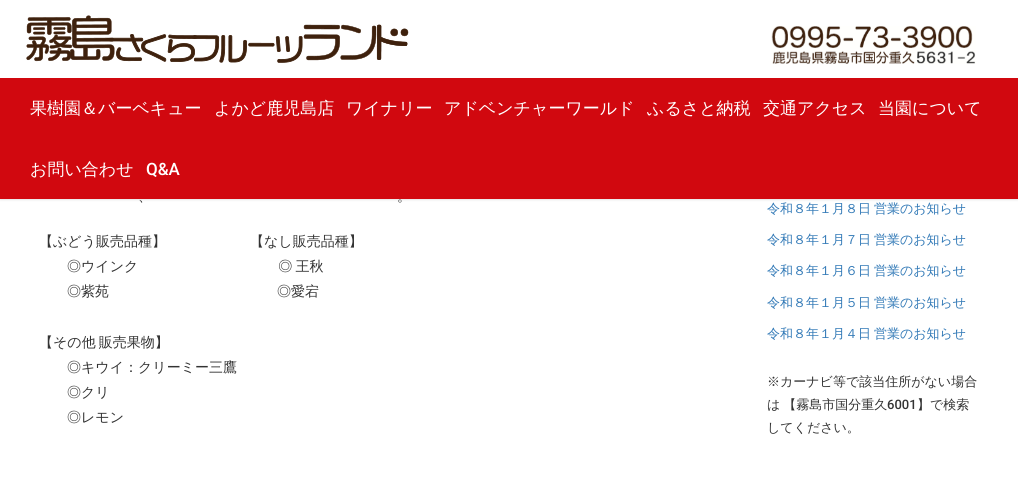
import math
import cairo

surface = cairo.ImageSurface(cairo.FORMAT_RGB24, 1018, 496)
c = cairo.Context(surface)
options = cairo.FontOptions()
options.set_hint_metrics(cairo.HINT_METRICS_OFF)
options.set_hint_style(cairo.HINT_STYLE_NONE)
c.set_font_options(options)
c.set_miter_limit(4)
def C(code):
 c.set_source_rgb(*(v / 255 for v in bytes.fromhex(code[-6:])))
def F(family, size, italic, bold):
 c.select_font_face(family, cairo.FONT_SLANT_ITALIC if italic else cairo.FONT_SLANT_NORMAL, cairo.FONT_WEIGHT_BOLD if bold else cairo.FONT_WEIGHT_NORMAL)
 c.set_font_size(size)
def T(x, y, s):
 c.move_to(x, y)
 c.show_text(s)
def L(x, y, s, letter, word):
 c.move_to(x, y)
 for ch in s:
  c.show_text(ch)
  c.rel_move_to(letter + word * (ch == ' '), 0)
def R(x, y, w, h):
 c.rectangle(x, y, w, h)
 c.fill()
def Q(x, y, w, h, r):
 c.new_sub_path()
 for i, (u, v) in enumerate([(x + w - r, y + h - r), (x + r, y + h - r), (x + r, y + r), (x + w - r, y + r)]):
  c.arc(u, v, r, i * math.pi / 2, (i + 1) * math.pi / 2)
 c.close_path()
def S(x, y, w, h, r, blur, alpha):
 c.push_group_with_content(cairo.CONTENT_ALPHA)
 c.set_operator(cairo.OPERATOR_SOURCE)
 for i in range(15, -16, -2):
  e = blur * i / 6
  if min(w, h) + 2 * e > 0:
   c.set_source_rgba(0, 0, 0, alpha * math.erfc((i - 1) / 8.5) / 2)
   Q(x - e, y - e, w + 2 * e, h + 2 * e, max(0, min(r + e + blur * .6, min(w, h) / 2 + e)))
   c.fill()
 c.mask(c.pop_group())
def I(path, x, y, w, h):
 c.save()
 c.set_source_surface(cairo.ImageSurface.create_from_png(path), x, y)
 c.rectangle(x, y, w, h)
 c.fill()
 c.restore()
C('ffffff')
c.paint()
C('000000')
S(0,0,1018,199,0,1.5,.2)
C('ffffff')
R(0,0,1018,78)
I('1.png',26,15,383,48)
I('2.png',771,26,205,38)
C('d1080f')
R(0,78,1018,121)
F('WenQuanYi Zen Hei Medium',17,0,0)
C('ffffff')
T(30,114,'果樹園＆バーベキュー')
T(214,114,'よかど鹿児島店')
T(346,114,'ワイナリー')
T(444,114,'アドベンチャーワールド')
T(647,114,'ふるさと納税')
T(763,114,'交通アクセス')
T(878,114,'当園について')
T(30,175,'お問い合わせ')
F('Roboto Medium',17,0,0)
T(146,175,'Q&A')
F('WenQuanYi Zen Hei Medium',14,0,0)
C('333333')
T(138,201,'、')
T(397,201,'。')
T(39,246,'【ぶどう販売品種】　　　　　　【なし販売品種】')
L(67,271,'◎ウインク　　　　　　　　　　◎ 王秋',0,-1)
T(67,296,'◎紫苑　　　　　　　　　　　　◎愛宕')
L(39,347,'【その他 販売果物】',0,-1)
T(67,372,'◎キウイ：クリーミー三鷹')
T(67,397,'◎クリ')
T(67,422,'◎レモン')
F('WenQuanYi Zen Hei Medium',13,0,0)
C('337ab7')
L(767,213,'令和８年１月８日 営業のお知らせ',0,-1)
L(767,244,'令和８年１月７日 営業のお知らせ',0,-1)
L(767,275,'令和８年１月６日 営業のお知らせ',0,-1)
L(767,307,'令和８年１月５日 営業のお知らせ',0,-1)
L(767,338,'令和８年１月４日 営業のお知らせ',0,-1)
C('333333')
T(767,386,'※カーナビ等で該当住所がない場合')
L(767,409,'は 【霧島市国分重久',0,-1)
F('Roboto Medium',13,0,0)
T(887,409,'6001')
F('WenQuanYi Zen Hei Medium',13,0,0)
T(917,409,'】で検索')
T(767,432,'してください。')
surface.write_to_png('o.png')
